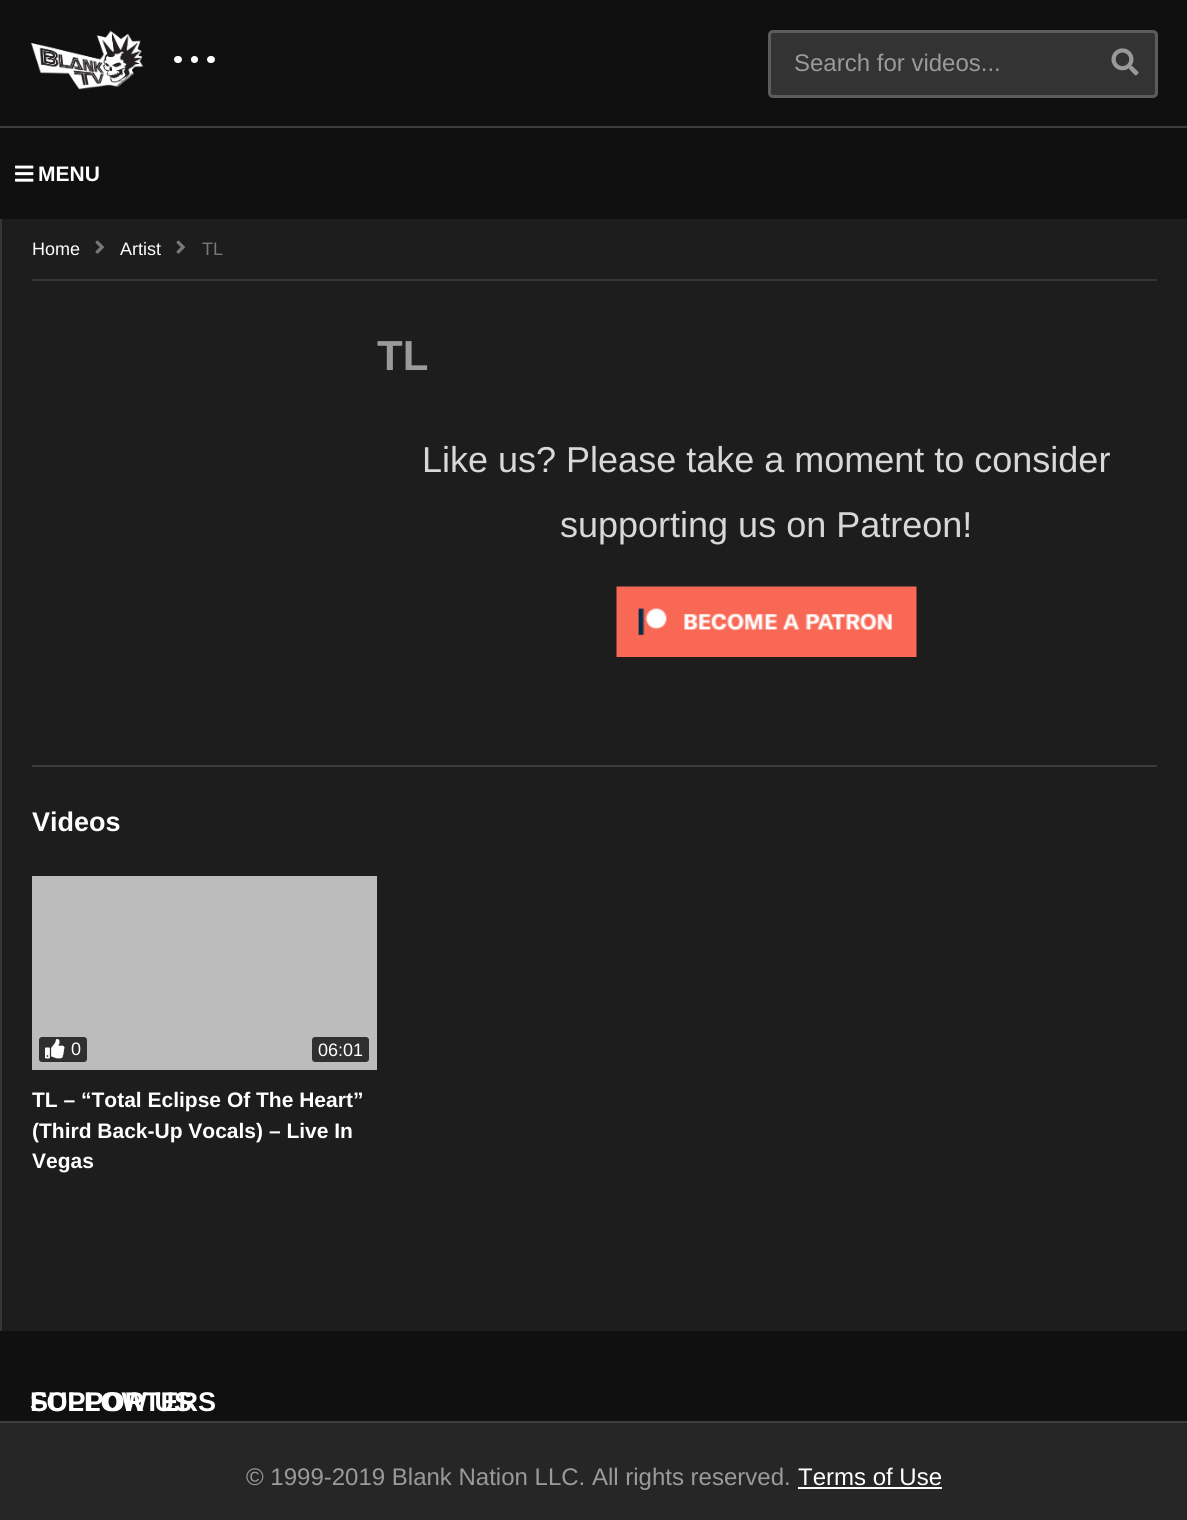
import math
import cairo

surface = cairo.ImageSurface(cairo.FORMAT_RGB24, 1187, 1520)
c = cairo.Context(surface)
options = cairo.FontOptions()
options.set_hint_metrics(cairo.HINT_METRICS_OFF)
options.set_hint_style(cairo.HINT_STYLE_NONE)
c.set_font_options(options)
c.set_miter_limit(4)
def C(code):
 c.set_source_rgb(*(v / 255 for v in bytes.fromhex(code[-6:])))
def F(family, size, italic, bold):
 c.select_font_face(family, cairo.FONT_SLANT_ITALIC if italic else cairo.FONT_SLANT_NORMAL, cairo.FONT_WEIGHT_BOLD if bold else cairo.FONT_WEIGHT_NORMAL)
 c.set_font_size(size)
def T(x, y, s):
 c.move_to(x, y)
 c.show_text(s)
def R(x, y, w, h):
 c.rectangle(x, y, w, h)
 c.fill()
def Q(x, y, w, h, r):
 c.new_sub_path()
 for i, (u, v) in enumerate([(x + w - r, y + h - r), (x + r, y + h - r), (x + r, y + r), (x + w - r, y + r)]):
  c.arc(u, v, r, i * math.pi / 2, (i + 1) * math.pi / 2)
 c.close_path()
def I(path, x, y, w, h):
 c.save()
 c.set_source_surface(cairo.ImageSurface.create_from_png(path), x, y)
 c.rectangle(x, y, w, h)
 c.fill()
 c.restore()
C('101010')
c.paint()
I('1.png',30,30,114,60)
C('ffffff')
Q(174,56,8,7,3.5)
c.fill()
c.arc(194.5,59.5,3.5,0,2 * math.pi)
c.fill()
Q(207,56,8,7,3.5)
c.fill()
C('333333')
Q(768,30,390,68,5)
c.fill()
Q(769.5,31.5,387,65,3.5)
c.set_source_rgba(1,1,1,0.2)
c.set_line_width(3)
c.stroke()
F('Liberation Sans',24,0,0)
C('9a9a9a')
T(794,71,'Search for videos...')
I('2.png',1111,48,28,28)
C('3c3c3c')
R(0,126,1187,2)
I('3.png',15,165,19,17)
F('Liberation Sans',21,0,1)
C('ffffff')
T(38,181,'MENU')
C('1d1d1d')
R(2,219,1185,1112)
C('363636')
R(0,219,2,1112)
R(32,279,1125,2)
F('Liberation Sans',18,0,0)
C('ffffff')
T(32,255,'Home')
I('4.png',95,240,9,14)
T(120,255,'Artist')
I('4.png',176,240,9,14)
C('787878')
T(202,255,'TL')
F('Liberation Sans',42,0,1)
C('9a9a9a')
T(377,370,'TL')
F('Liberation Sans',36,0,0)
C('d8d8d8')
T(422,472,'Like us? Please take a moment to consider')
T(560,537,'supporting us on Patreon!')
I('5.png',616,586,301,71)
C('3c3c3c')
R(32,765,1125,2)
F('Liberation Sans',27,0,1)
C('ffffff')
T(32,831,'Videos')
C('bcbcbc')
R(32,876,345,194)
C('2f2f2f')
Q(39,1037,48,25,3)
c.fill()
I('6.png',45,1039,20,20)
F('Liberation Sans',18,0,0)
C('ffffff')
T(71,1055,'0')
C('2f2f2f')
Q(312,1037,57,25,3)
c.fill()
C('ffffff')
T(318,1056,'06:01')
F('Liberation Sans',21,0,1)
T(32,1107,'TL – “Total Eclipse Of The Heart”')
T(32,1138,'(Third Back-Up Vocals) – Live In')
T(32,1168,'Vegas')
F('Liberation Sans',27,0,1)
T(30,1411,'FOLLOW US')
T(30,1411,'SUPPORTERS')
C('262626')
R(0,1423,1187,97)
C('3c3c3c')
R(0,1421,1187,2)
F('Liberation Sans',24,0,0)
C('9a9a9a')
T(246,1485,'© 1999-2019 Blank Nation LLC. All rights reserved.')
C('ffffff')
T(798,1485,'Terms of Use')
R(798,1487,144,2)
surface.write_to_png('o.png')
